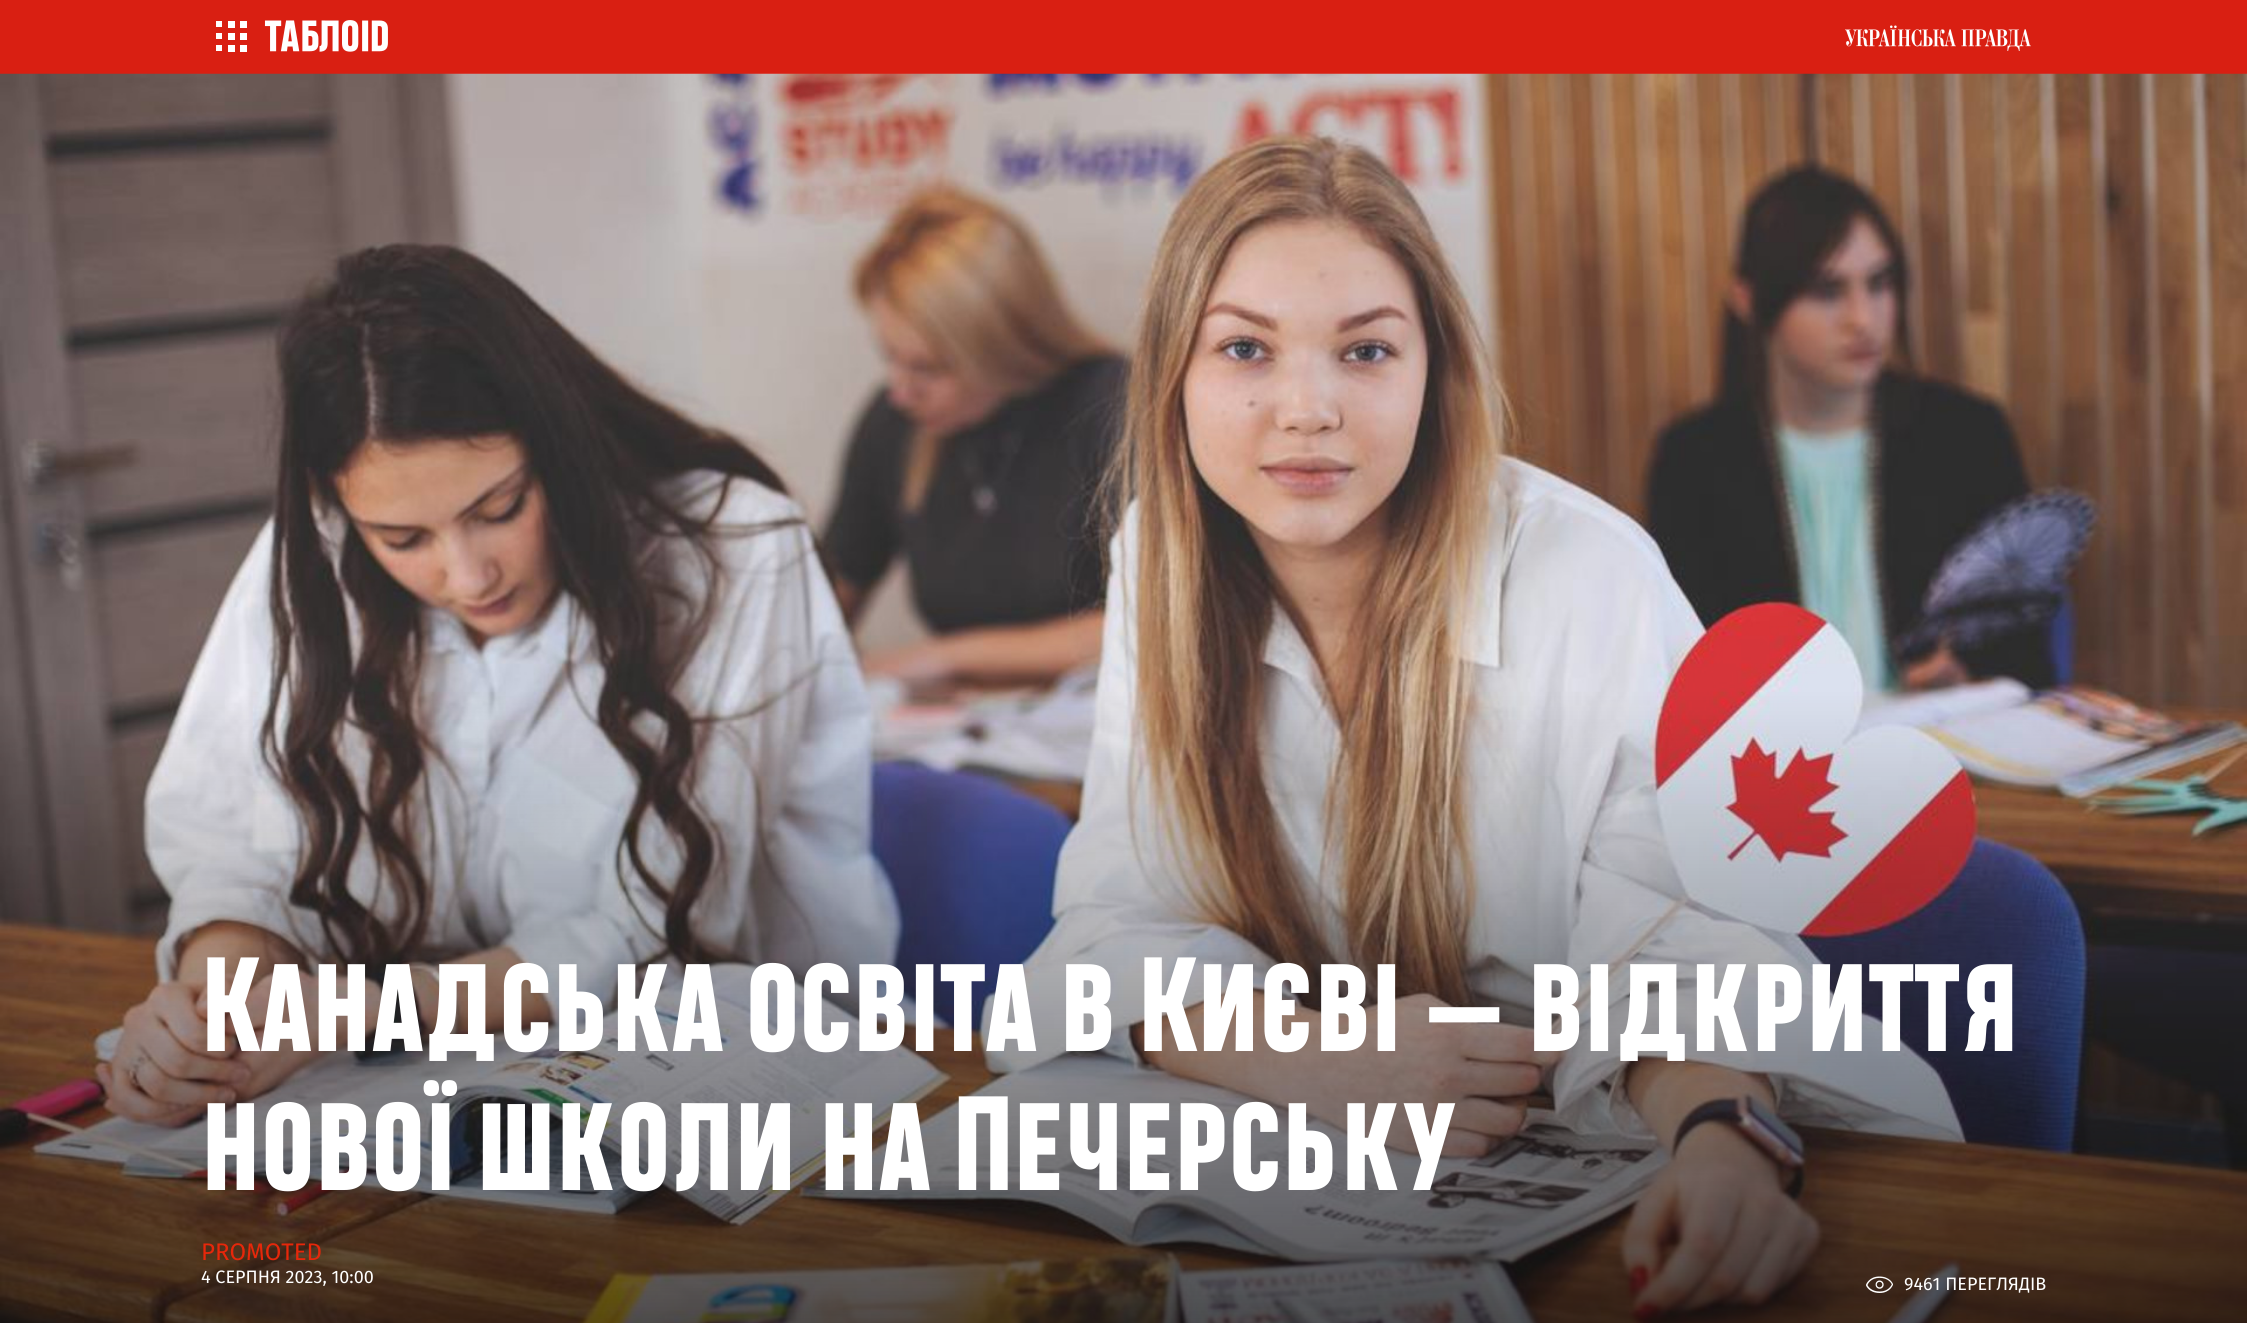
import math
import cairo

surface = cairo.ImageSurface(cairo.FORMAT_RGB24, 2247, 1323)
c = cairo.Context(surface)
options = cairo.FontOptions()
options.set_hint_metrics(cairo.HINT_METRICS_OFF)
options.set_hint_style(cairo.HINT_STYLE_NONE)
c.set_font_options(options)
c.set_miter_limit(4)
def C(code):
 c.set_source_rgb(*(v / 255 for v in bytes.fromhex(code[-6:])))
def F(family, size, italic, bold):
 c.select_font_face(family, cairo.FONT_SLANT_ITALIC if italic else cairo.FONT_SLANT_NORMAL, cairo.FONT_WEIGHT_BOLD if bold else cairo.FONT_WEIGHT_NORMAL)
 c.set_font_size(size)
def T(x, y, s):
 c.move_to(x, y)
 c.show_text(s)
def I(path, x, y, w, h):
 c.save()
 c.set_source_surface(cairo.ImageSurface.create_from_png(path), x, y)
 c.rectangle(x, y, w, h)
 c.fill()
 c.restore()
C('d91f12')
c.paint()
I('1.png',216,21,31,31)
I('2.png',264,20,124,32)
I('3.png',1845,25,186,26)
I('4.png',0,73,2247,1250)
F('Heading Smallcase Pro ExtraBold',126,0,0)
C('ffffff')
T(201,1051,'Канадська освіта в Києві — відкриття')
T(201,1190,'нової школи на Печерську')
F('Fira Sans',24,0,0)
C('e7270a')
T(201,1260,'PROMOTED')
F('Fira Sans',18,0,0)
C('ffffff')
T(201,1283,'4 СЕРПНЯ 2023, 10:00')
I('5.png',1866,1276,27,17)
T(1904,1290,'9461 ПЕРЕГЛЯДІВ')
surface.write_to_png('o.png')
